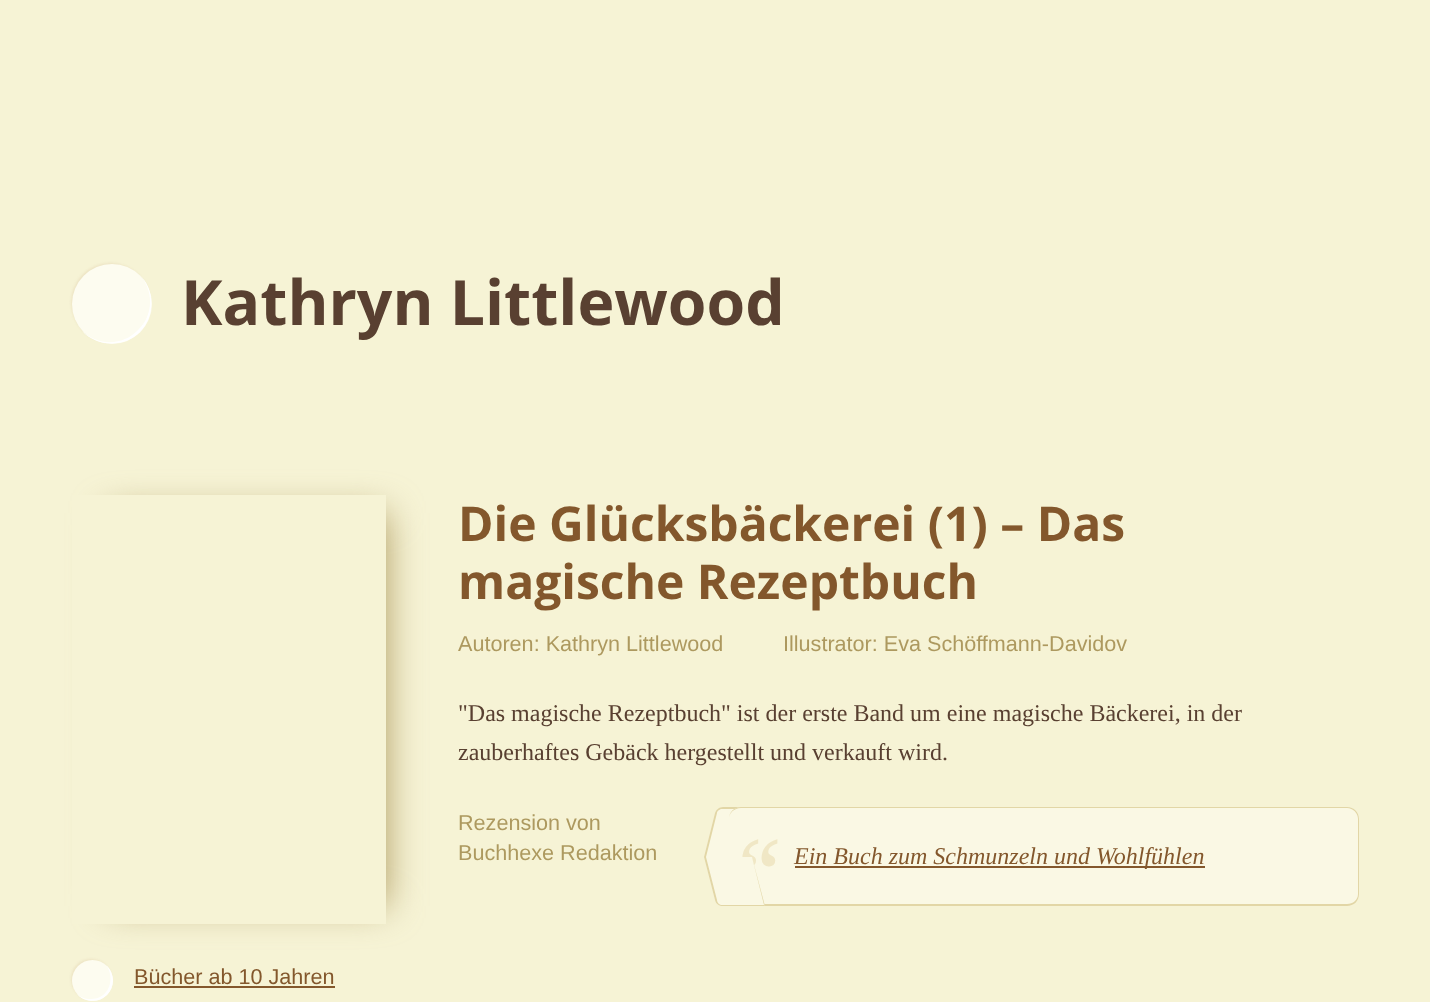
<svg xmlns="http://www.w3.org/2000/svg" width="1430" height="1002">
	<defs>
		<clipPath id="clip1"><path d="M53 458H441V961H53ZM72 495H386V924H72Z" clip-rule="evenodd" /></clipPath>
	</defs>
	<rect width="100%" height="100%" fill="#F6F3D5" />
	<rect x="71" y="263" width="79" height="79" rx="39.5" fill="#EDE4C4" filter="blur(1px)" />
	<circle cx="112" cy="304" r="40" fill="#FDFCF0" />
	<path d="M82 331C97 347 124 348 140 332C156 316 155 289 139 274C154 290 154 315 138 330C123 346 98 346 82 331Z" fill="#FFFFFF" />
	<text x="181" y="325" font-family="Open Sans" font-size="62.5" font-weight="700" fill="#594031">Kathryn Littlewood</text>
	<g font-family="Open Sans" font-size="48" font-weight="700" fill="#83572C">
		<text x="458" y="541">Die Glücksbäckerei (1) – Das</text>
		<text x="458" y="599">magische Rezeptbuch</text>
	</g>
	<g font-family="Liberation Sans" font-size="21.6" fill="#AD995F">
		<text x="458" y="651">Autoren: Kathryn Littlewood</text>
		<text x="783" y="651">Illustrator: Eva Schöffmann-Davidov</text>
	</g>
	<g font-family="Liberation Serif" font-size="24" fill="#594031">
		<text x="458" y="721">"Das magische Rezeptbuch" ist der erste Band um eine magische Bäckerei, in der</text>
		<text x="458" y="760">zauberhaftes Gebäck hergestellt und verkauft wird.</text>
	</g>
	<g font-family="Liberation Sans" font-size="21.6" fill="#AD995F">
		<text x="458" y="830">Rezension von</text>
		<text x="458" y="860">Buchhexe Redaktion</text>
	</g>
	<path d="M723 807H765L752 857H704L715 813C716 810 719 807 723 807Z" fill="#FAF8E4" />
	<path d="M723 807H765L752 857H704L715 813C716 810 719 807 723 807ZM722 809H764L752 857H706L717 813C717 811 720 809 722 809Z" fill="#E2D6A6" fill-rule="evenodd" />
	<rect x="729" y="807" width="630" height="99" rx="12" fill="#FAF8E4" />
	<path d="M741 807H1347C1354 807 1359 812 1359 819V894C1359 901 1354 906 1347 906H741C734 906 729 901 729 894V819C729 812 734 807 741 807ZM741 808H1347C1353 808 1358 813 1358 819V894C1358 900 1353 904 1347 904H741C734 904 729 900 729 894V819C729 813 734 808 741 808Z" fill="#E2D6A6" fill-rule="evenodd" />
	<text x="737" y="908" font-family="Noto Serif" font-size="96" fill="#F0E7C5">“</text>
	<rect x="795" y="866" width="410" height="2" fill="#83572C" />
	<text x="794" y="864" font-family="Liberation Serif" font-size="24" font-style="italic" fill="#83572C">Ein Buch zum Schmunzeln und Wohlfühlen</text>
	<path d="M704 857H752L765 906H723C719 906 716 904 715 900Z" fill="#FAF8E4" />
	<path d="M704 857H752L765 906H723C719 906 716 904 715 900ZM706 857H752L764 905H722C720 905 717 903 717 900Z" fill="#E2D6A6" fill-rule="evenodd" />
	<g clip-path="url(#clip1)">
		<rect x="108" y="513" width="278" height="393" fill="#AE9A5F" filter="blur(18px)" />
	</g>
	<rect x="71" y="959" width="40" height="40" rx="20" fill="#EDE4C4" filter="blur(1px)" />
	<circle cx="92.5" cy="980.5" r="20.5" fill="#FDFCF0" />
	<path d="M76.5 993.5C84 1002.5 98.5 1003.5 107 995C115 987 115 973.5 106.5 965.5C115 977.5 110 999 91 999C84.5 999 80 997 76.5 993.5Z" fill="#FFFFFF" />
	<text x="134" y="984" font-family="Liberation Sans" font-size="21.6" fill="#83572C">Bücher ab 10 Jahren</text>
	<rect x="134" y="986" width="201" height="2" fill="#83572C" />
</svg>
